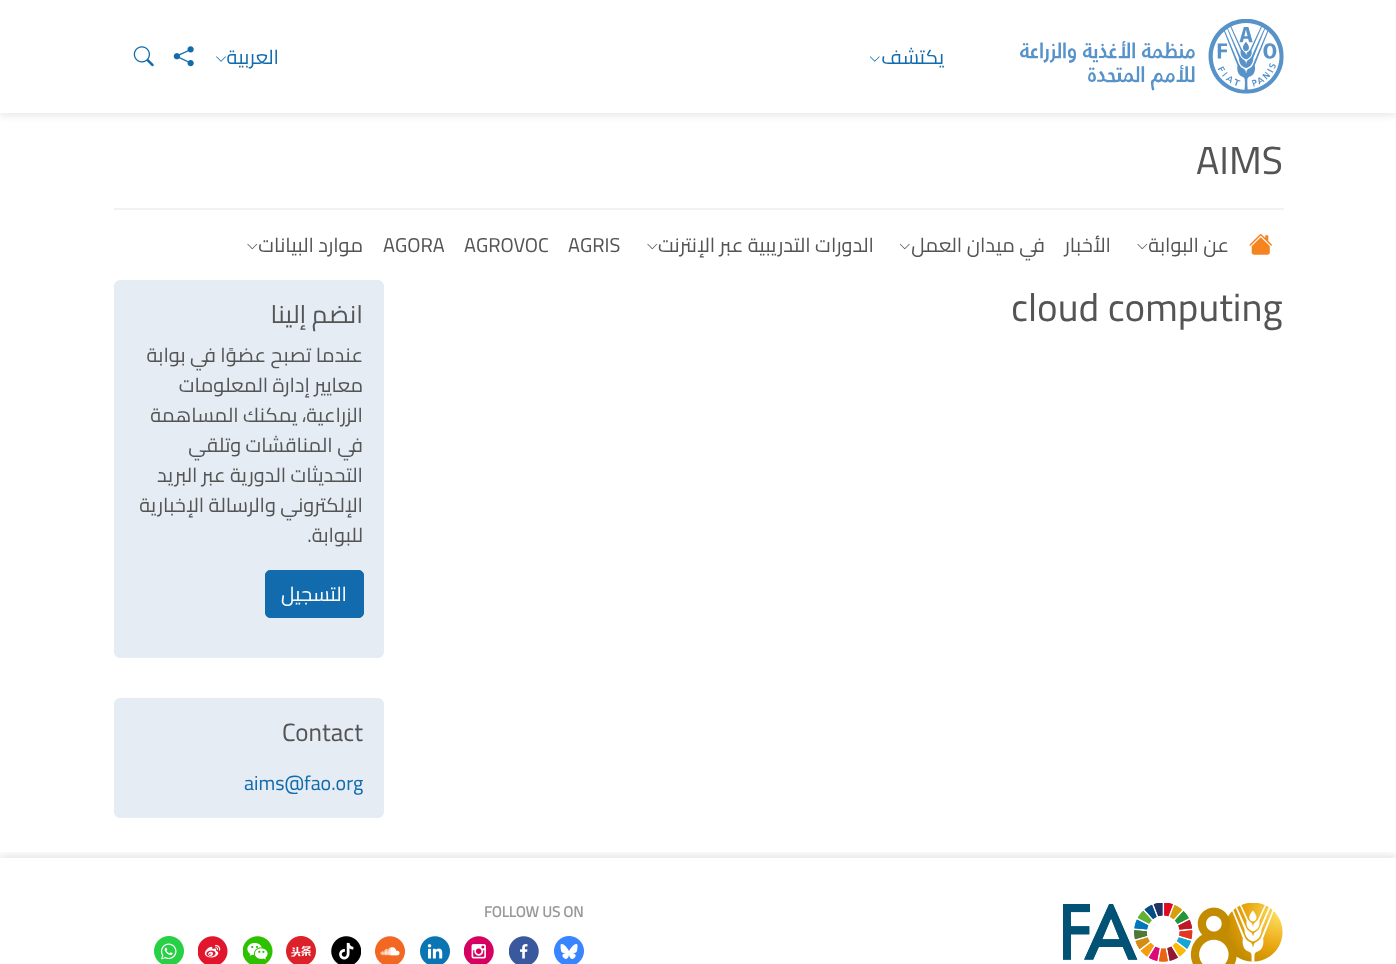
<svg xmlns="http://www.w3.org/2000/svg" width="1396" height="964">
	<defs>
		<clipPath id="clip1"><rect x="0" y="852" width="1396" height="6" /></clipPath>
	</defs>
	<rect width="100%" height="100%" fill="#FFFFFF" />
	<rect x="0" y="3" width="1396" height="112" fill="#000000" fill-opacity="0.1" filter="blur(4px)" />
	<rect x="0" y="0" width="1396" height="113" fill="#FFFFFF" />
	<image x="1020" y="19" width="264" height="75" href="assets/img1.png" />
	<text x="944" y="64" font-family="Cairo" font-size="20" direction="rtl" fill="#116BAC">يكتشف</text>
	<image x="869" y="56" width="11" height="6" href="assets/img2.png" />
	<text x="279" y="64" font-family="Cairo" font-size="20" direction="rtl" fill="#116BAC">العربية</text>
	<image x="216" y="56" width="10" height="6" href="assets/img3.png" />
	<image x="173" y="46" width="21" height="21" href="assets/img4.png" />
	<image x="133" y="46" width="21" height="21" href="assets/img5.png" />
	<rect x="114" y="208" width="1170" height="2" fill="#F2F2F2" />
	<text x="1196" y="174" font-family="Cairo" font-size="39" fill="#545454">AIMS</text>
	<image x="1249" y="234" width="23" height="21" href="assets/img6.png" />
	<text x="1229" y="252" font-family="Cairo" font-size="20" direction="rtl" fill="#545454">عن البوابة</text>
	<image x="1137" y="243" width="11" height="7" href="assets/img7.png" />
	<g font-family="Cairo" font-size="20" direction="rtl" fill="#545454">
		<text x="1111" y="252">الأخبار</text>
		<text x="1045" y="252">في ميدان العمل</text>
	</g>
	<image x="899" y="243" width="11" height="7" href="assets/img8.png" />
	<text x="874" y="252" font-family="Cairo" font-size="20" direction="rtl" fill="#545454">الدورات التدريبية عبر الإنترنت</text>
	<image x="647" y="243" width="11" height="7" href="assets/img7.png" />
	<g font-family="Cairo" font-size="20" fill="#545454">
		<text x="568" y="252">AGRIS</text>
		<text x="464" y="252">AGROVOC</text>
		<text x="383" y="252">AGORA</text>
	</g>
	<text x="363" y="252" font-family="Cairo" font-size="20" direction="rtl" fill="#545454">موارد البيانات</text>
	<image x="247" y="243" width="11" height="7" href="assets/img7.png" />
	<text x="1011" y="321" font-family="Cairo" font-size="39" fill="#545454">cloud computing</text>
	<rect x="114" y="280" width="270" height="378" rx="6" fill="#E5ECF4" />
	<text x="363" y="323" font-family="Cairo" font-size="25" direction="rtl" fill="#545454">انضم إلينا</text>
	<g font-family="Cairo" font-size="20" direction="rtl" fill="#545454">
		<text x="363" y="362">عندما تصبح عضوًا في بوابة</text>
		<text x="363" y="392">معايير إدارة المعلومات</text>
		<text x="363" y="422">الزراعية، يمكنك المساهمة</text>
		<text x="363" y="452">في المناقشات وتلقي</text>
		<text x="363" y="482">التحديثات الدورية عبر البريد</text>
		<text x="363" y="512">الإلكتروني والرسالة الإخبارية</text>
		<text x="363" y="542">للبوابة.</text>
	</g>
	<rect x="265.5" y="570.5" width="98" height="47" rx="4.5" fill="#116BAC" stroke="#116BAC" />
	<text x="347" y="601" font-family="Cairo" font-size="20" direction="rtl" fill="#FFFFFF">التسجيل</text>
	<rect x="114" y="698" width="270" height="120" rx="6" fill="#E5ECF4" />
	<text x="282" y="741" font-family="Cairo" font-size="25" fill="#545454">Contact</text>
	<text x="244" y="790" font-family="Cairo" font-size="20" fill="#116BAC">aims@fao.org</text>
	<g clip-path="url(#clip1)">
		<rect x="0" y="855" width="1396" height="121" fill="#000000" fill-opacity="0.1" filter="blur(4px)" />
	</g>
	<image x="1063" y="903" width="220" height="61" href="assets/img9.png" />
	<text x="484" y="917" font-family="Cairo" font-size="15" font-weight="700" fill="#999999">FOLLOW US ON</text>
	<image x="554" y="936" width="30" height="28" href="assets/img10.png" />
	<image x="509" y="936" width="30" height="28" href="assets/img11.png" />
	<image x="464" y="936" width="30" height="28" href="assets/img12.png" />
	<image x="420" y="936" width="30" height="28" href="assets/img13.png" />
	<image x="375" y="936" width="30" height="28" href="assets/img14.png" />
	<image x="331" y="936" width="30" height="28" href="assets/img15.png" />
	<image x="286" y="936" width="30" height="28" href="assets/img16.png" />
	<image x="243" y="936" width="30" height="28" href="assets/img17.png" />
	<image x="198" y="936" width="30" height="28" href="assets/img18.png" />
	<image x="154" y="936" width="30" height="28" href="assets/img19.png" />
</svg>
